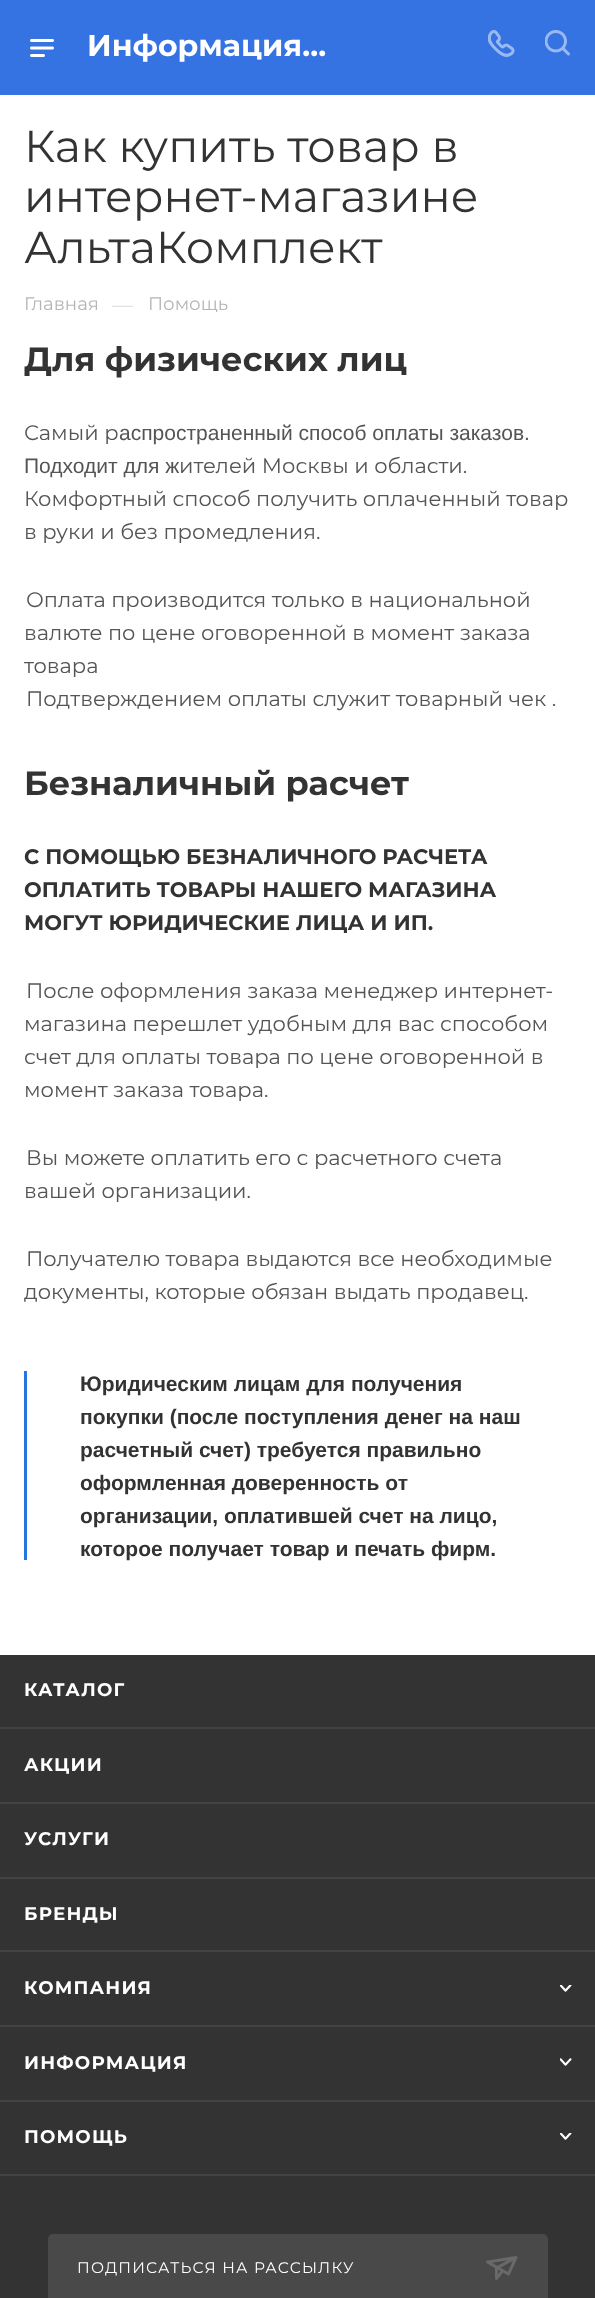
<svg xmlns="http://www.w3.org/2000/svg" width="595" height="2298">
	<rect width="100%" height="100%" fill="#FFFFFF" />
	<rect x="0" y="0" width="595" height="95" fill="#3573E3" />
	<image x="30" y="39" width="24" height="18" href="assets/img1.png" />
	<text x="87" y="56" font-family="Montserrat" font-size="30" font-weight="700" fill="#FFFFFF">Информация…</text>
	<image x="488" y="30" width="27" height="27" href="assets/img2.png" />
	<image x="545" y="30" width="25" height="26" href="assets/img3.png" />
	<g font-family="Montserrat" font-size="44.75" fill="#333333">
		<text x="24" y="162">Как купить товар в</text>
		<text x="24" y="212">интернет-магазине</text>
		<text x="24" y="263">АльтаКомплект</text>
	</g>
	<text x="24" y="310" font-family="Montserrat" font-size="18.25" fill="#B6B5B5">Главная</text>
	<text x="112" y="312" font-family="Montserrat" font-size="21" fill="#DDDDDD">—</text>
	<text x="148" y="310" font-family="Montserrat" font-size="18.25" fill="#B6B5B5">Помощь</text>
	<text x="24" y="371" font-family="Montserrat" font-size="33.6" font-weight="700" fill="#333333">Для физических лиц</text>
	<text x="24" y="440" font-family="Montserrat" font-size="21" fill="#555555">Самый р</text>
	<g font-family="Liberation Sans" font-size="21" fill="#555555">
		<text x="119" y="440">аспространенный способ оплаты заказов.</text>
		<text x="24" y="473">Подходит для ж</text>
	</g>
	<g font-family="Montserrat" font-size="21" fill="#555555">
		<text x="179" y="473">ителей Москвы и области.</text>
		<text x="24" y="506">Комфортный способ получить оплаченный товар</text>
		<text x="24" y="539">в руки и без промедления.</text>
		<text x="26" y="607">Оплата производится только в национальной</text>
		<text x="24" y="640">валюте по цене оговоренной в момент заказа</text>
		<text x="24" y="673">товара</text>
		<text x="26" y="706">Подтверждением оплаты служит товарный чек .</text>
	</g>
	<text x="24" y="795" font-family="Montserrat" font-size="33.6" font-weight="700" fill="#333333">Безналичный расчет</text>
	<g font-family="Montserrat" font-size="21" font-weight="700" fill="#333333">
		<text x="24" y="864">С ПОМОЩЬЮ БЕЗНАЛИЧНОГО РАСЧЕТА</text>
		<text x="24" y="897">ОПЛАТИТЬ ТОВАРЫ НАШЕГО МАГАЗИНА</text>
		<text x="24" y="930">МОГУТ ЮРИДИЧЕСКИЕ ЛИЦА И ИП.</text>
	</g>
	<g font-family="Montserrat" font-size="21" fill="#555555">
		<text x="26" y="998">После оформления заказа менеджер интернет-</text>
		<text x="24" y="1031">магазина перешлет удобным для вас способом</text>
		<text x="24" y="1064">счет для оплаты товара по цене оговоренной в</text>
		<text x="24" y="1097">момент заказа товара.</text>
		<text x="26" y="1165">Вы можете оплатить его с расчетного счета</text>
		<text x="24" y="1198">вашей организации.</text>
		<text x="26" y="1266">Получателю товара выдаются все необходимые</text>
		<text x="24" y="1299">документы, которые обязан выдать продавец.</text>
	</g>
	<rect x="24" y="1371" width="3" height="189" fill="#2676E2" />
	<g font-family="Liberation Sans" font-size="21" font-weight="700" fill="#333333">
		<text x="80" y="1391">Юридическим лицам для получения</text>
		<text x="80" y="1424">покупки (после поступления денег на наш</text>
		<text x="80" y="1457">расчетный счет) требуется правильно</text>
		<text x="80" y="1490">оформленная доверенность от</text>
		<text x="80" y="1523">организации, оплатившей счет на лицо,</text>
		<text x="80" y="1556">которое получает товар и печать фирм.</text>
	</g>
	<rect x="0" y="1655" width="595" height="643" fill="#333333" />
	<rect x="0" y="1727" width="595" height="2" fill="#434343" />
	<text x="24" y="1696" font-family="Montserrat" font-size="18.25" font-weight="700" letter-spacing="1.2" fill="#FFFFFF">КАТАЛОГ</text>
	<rect x="0" y="1802" width="595" height="2" fill="#434343" />
	<text x="24" y="1771" font-family="Montserrat" font-size="18.25" font-weight="700" letter-spacing="1.2" fill="#FFFFFF">АКЦИИ</text>
	<rect x="0" y="1877" width="595" height="2" fill="#434343" />
	<text x="24" y="1845" font-family="Montserrat" font-size="18.25" font-weight="700" letter-spacing="1.2" fill="#FFFFFF">УСЛУГИ</text>
	<rect x="0" y="1950" width="595" height="2" fill="#434343" />
	<text x="24" y="1920" font-family="Montserrat" font-size="18.25" font-weight="700" letter-spacing="1.2" fill="#FFFFFF">БРЕНДЫ</text>
	<rect x="0" y="2025" width="595" height="2" fill="#434343" />
	<text x="24" y="1994" font-family="Montserrat" font-size="18.25" font-weight="700" letter-spacing="1.2" fill="#FFFFFF">КОМПАНИЯ</text>
	<image x="560" y="1985" width="12" height="7" href="assets/img4.png" />
	<rect x="0" y="2100" width="595" height="2" fill="#434343" />
	<text x="24" y="2069" font-family="Montserrat" font-size="18.25" font-weight="700" letter-spacing="1.2" fill="#FFFFFF">ИНФОРМАЦИЯ</text>
	<image x="560" y="2058" width="12" height="8" href="assets/img5.png" />
	<rect x="0" y="2174" width="595" height="2" fill="#434343" />
	<text x="24" y="2143" font-family="Montserrat" font-size="18.25" font-weight="700" letter-spacing="1.2" fill="#FFFFFF">ПОМОЩЬ</text>
	<image x="560" y="2133" width="12" height="7" href="assets/img6.png" />
	<rect x="49" y="2235" width="498" height="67" rx="4" fill="#494949" stroke="#494949" stroke-width="2" />
	<text x="77" y="2273" font-family="Montserrat" font-size="15.4" letter-spacing="1.2" fill="#FFFFFF">ПОДПИСАТЬСЯ НА РАССЫЛКУ</text>
	<image x="486" y="2256" width="32" height="24" href="assets/img7.png" />
</svg>
